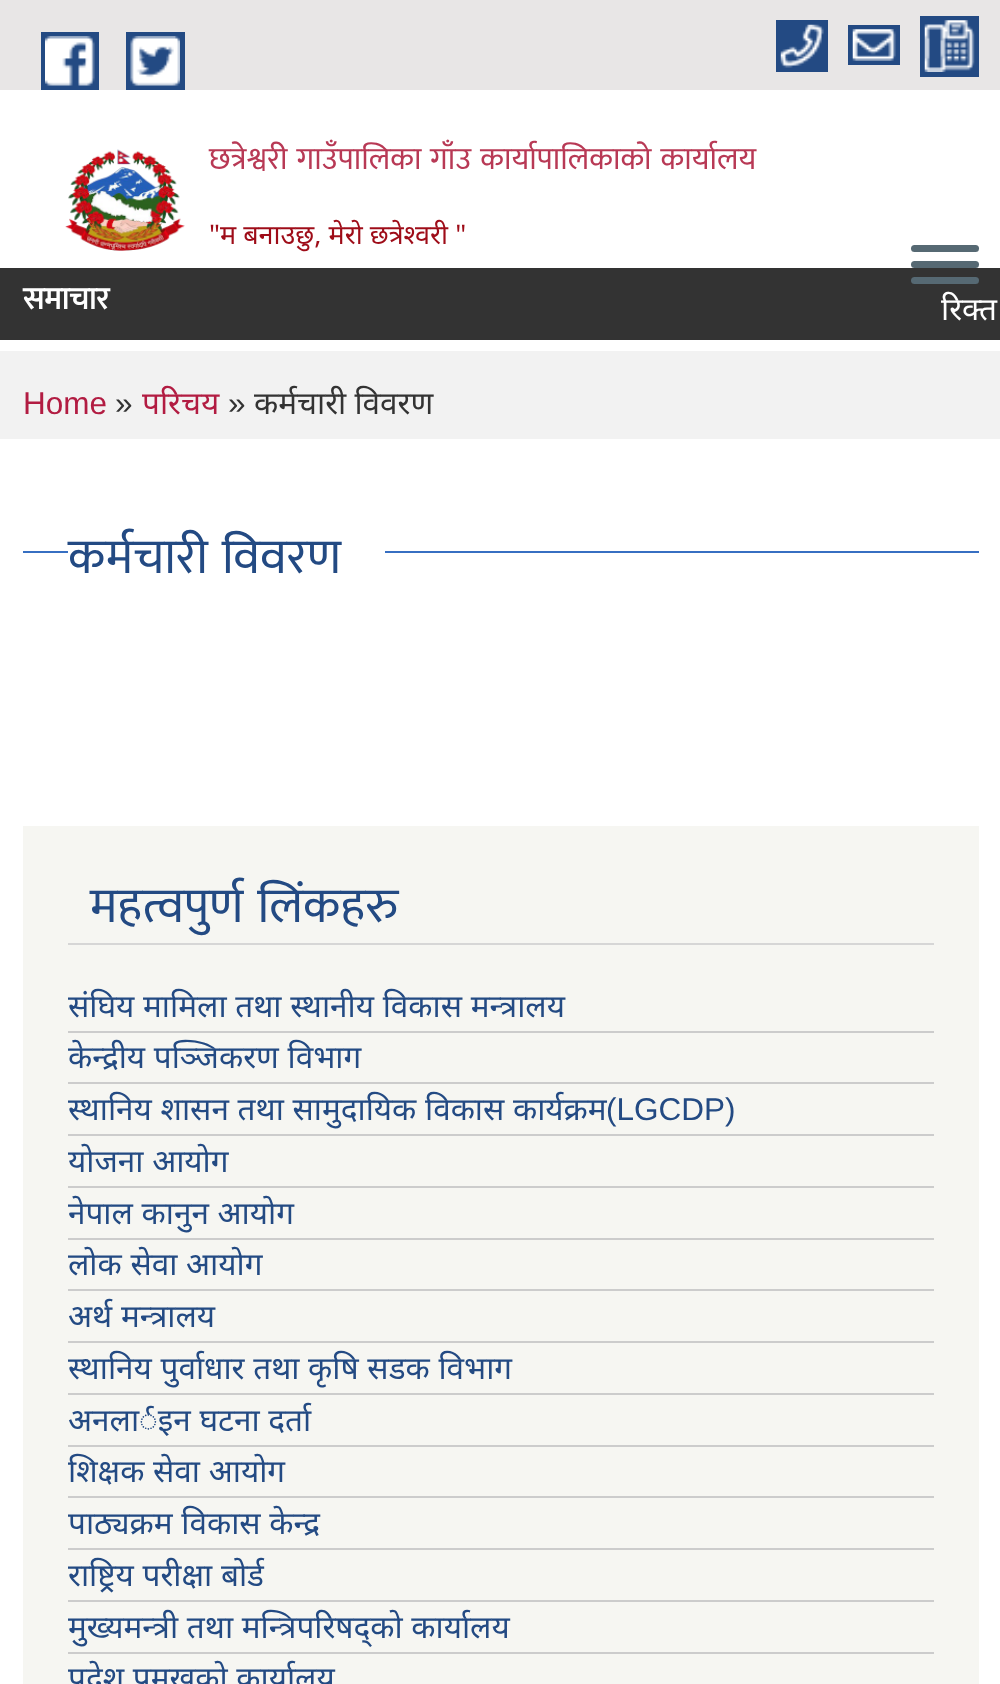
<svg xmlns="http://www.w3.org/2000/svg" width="1000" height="1684">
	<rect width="100%" height="100%" fill="#FFFFFF" />
	<rect x="0" y="0" width="1000" height="90" fill="#E8E6E6" />
	<rect x="41" y="32" width="58" height="58" fill="#234A83" />
	<rect x="126" y="32" width="59" height="58" fill="#234A83" />
	<image x="45" y="36" width="50" height="50" href="assets/img1.png" />
	<image x="130" y="36" width="50" height="50" href="assets/img2.png" />
	<rect x="776" y="20" width="52" height="52" fill="#234A83" />
	<rect x="920" y="16" width="59" height="61" fill="#234A83" />
	<image x="780" y="24" width="44" height="44" href="assets/img3.png" />
	<rect x="848" y="25" width="52" height="40" fill="#234A83" />
	<image x="924" y="20" width="51" height="52" href="assets/img4.png" />
	<image x="852" y="29" width="44" height="32" href="assets/img5.png" />
	<image x="65" y="149" width="120" height="102" href="assets/img6.png" />
	<g font-family="Mukta" font-size="31.5" fill="#B83955">
		<text x="209" y="169" word-spacing="2">छत्रेश्वरी गाउँपालिका</text>
		<text x="430" y="169" word-spacing="2">गाँउ कार्यापालिकाको कार्यालय</text>
	</g>
	<text x="209" y="244" font-family="Noto Sans" font-size="27" fill="#9E0C18">"म बनाउछु, मेरो छत्रेश्वरी "</text>
	<rect x="911" y="245" width="68" height="7" rx="3.5" fill="#566973" />
	<rect x="911" y="261" width="68" height="7" rx="3.5" fill="#566973" />
	<rect x="0" y="268" width="1000" height="72" fill="#333333" />
	<rect x="911" y="277" width="68" height="7" rx="3.5" fill="#566973" />
	<text x="23" y="309" font-family="Mukta" font-size="31.5" font-weight="700" fill="#FFFFFF">समाचार</text>
	<text x="941" y="320" word-spacing="0.5" font-family="Noto Sans" font-size="31.5" fill="#FFFFFF">रिक्त</text>
	<rect x="0" y="351" width="1000" height="88" fill="#F2F2F2" />
	<text x="23" y="414" font-family="Liberation Sans" font-size="31.5" fill="#B21C42">Home</text>
	<text x="115" y="414" font-family="Liberation Sans" font-size="31.5" fill="#333333">»</text>
	<text x="142" y="414" font-family="Noto Sans" font-size="31.5" fill="#B21C42">परिचय</text>
	<text x="228" y="414" font-family="Liberation Sans" font-size="31.5" fill="#333333">»</text>
	<text x="254" y="414" font-family="Noto Sans" font-size="31.5" fill="#333333">कर्मचारी विवरण</text>
	<rect x="23" y="551" width="956" height="2" fill="#376FC2" />
	<rect x="68" y="551" width="317" height="2" fill="#FFFFFF" />
	<text x="68" y="573" word-spacing="3" font-family="Mukta" font-size="49.5" fill="#234A83">कर्मचारी विवरण</text>
	<rect x="23" y="826" width="956" height="858" fill="#F6F6F2" />
	<rect x="68" y="943" width="866" height="2" fill="#D6D6D6" />
	<text x="90" y="922" word-spacing="3" font-family="Mukta" font-size="49.5" fill="#234A83">महत्वपुर्ण लिंकहरु</text>
	<rect x="68" y="1031" width="866" height="2" fill="#CCCCCC" />
	<text x="68" y="1017" word-spacing="0.5" font-family="Noto Sans" font-size="31.5" fill="#234A83">संघिय मामिला तथा स्थानीय विकास मन्त्रालय</text>
	<rect x="68" y="1082" width="866" height="2" fill="#CCCCCC" />
	<text x="68" y="1068" word-spacing="0.5" font-family="Noto Sans" font-size="31.5" fill="#234A83">केन्द्रीय पञ्जिकरण विभाग</text>
	<rect x="68" y="1134" width="866" height="2" fill="#CCCCCC" />
	<text x="68" y="1120" word-spacing="0.5" font-family="Noto Sans" font-size="31.5" fill="#234A83">स्थानिय शासन तथा सामुदायिक विकास कार्यक्रम</text>
	<text x="606" y="1120" font-family="Liberation Sans" font-size="31.5" fill="#234A83">(LGCDP)</text>
	<rect x="68" y="1186" width="866" height="2" fill="#CCCCCC" />
	<text x="68" y="1172" word-spacing="0.5" font-family="Noto Sans" font-size="31.5" fill="#234A83">योजना आयोग</text>
	<rect x="68" y="1238" width="866" height="2" fill="#CCCCCC" />
	<text x="68" y="1224" word-spacing="0.5" font-family="Noto Sans" font-size="31.5" fill="#234A83">नेपाल कानुन आयोग</text>
	<rect x="68" y="1289" width="866" height="2" fill="#CCCCCC" />
	<text x="68" y="1275" word-spacing="0.5" font-family="Noto Sans" font-size="31.5" fill="#234A83">लोक सेवा आयोग</text>
	<rect x="68" y="1341" width="866" height="2" fill="#CCCCCC" />
	<text x="68" y="1327" word-spacing="0.5" font-family="Noto Sans" font-size="31.5" fill="#234A83">अर्थ मन्त्रालय</text>
	<rect x="68" y="1393" width="866" height="2" fill="#CCCCCC" />
	<text x="68" y="1379" word-spacing="0.5" font-family="Noto Sans" font-size="31.5" fill="#234A83">स्थानिय पुर्वाधार तथा कृषि सडक विभाग</text>
	<rect x="68" y="1445" width="866" height="2" fill="#CCCCCC" />
	<text x="68" y="1431" word-spacing="0.5" font-family="Noto Sans" font-size="31.5" fill="#234A83">अनलार्इन घटना दर्ता</text>
	<rect x="68" y="1496" width="866" height="2" fill="#CCCCCC" />
	<text x="68" y="1482" word-spacing="0.5" font-family="Noto Sans" font-size="31.5" fill="#234A83">शिक्षक सेवा आयोग</text>
	<rect x="68" y="1548" width="866" height="2" fill="#CCCCCC" />
	<text x="68" y="1534" word-spacing="0.5" font-family="Noto Sans" font-size="31.5" fill="#234A83">पाठ्यक्रम विकास केन्द्र</text>
	<rect x="68" y="1600" width="866" height="2" fill="#CCCCCC" />
	<text x="68" y="1586" word-spacing="0.5" font-family="Noto Sans" font-size="31.5" fill="#234A83">राष्ट्रिय परीक्षा बोर्ड</text>
	<rect x="68" y="1652" width="866" height="2" fill="#CCCCCC" />
	<g font-family="Noto Sans" font-size="31.5" fill="#234A83">
		<text x="68" y="1638" word-spacing="0.5">मुख्यमन्त्री तथा मन्त्रिपरिषद्को कार्यालय</text>
		<text x="68" y="1689" word-spacing="0.5">प्रदेश प्रमुखको कार्यालय</text>
	</g>
</svg>
